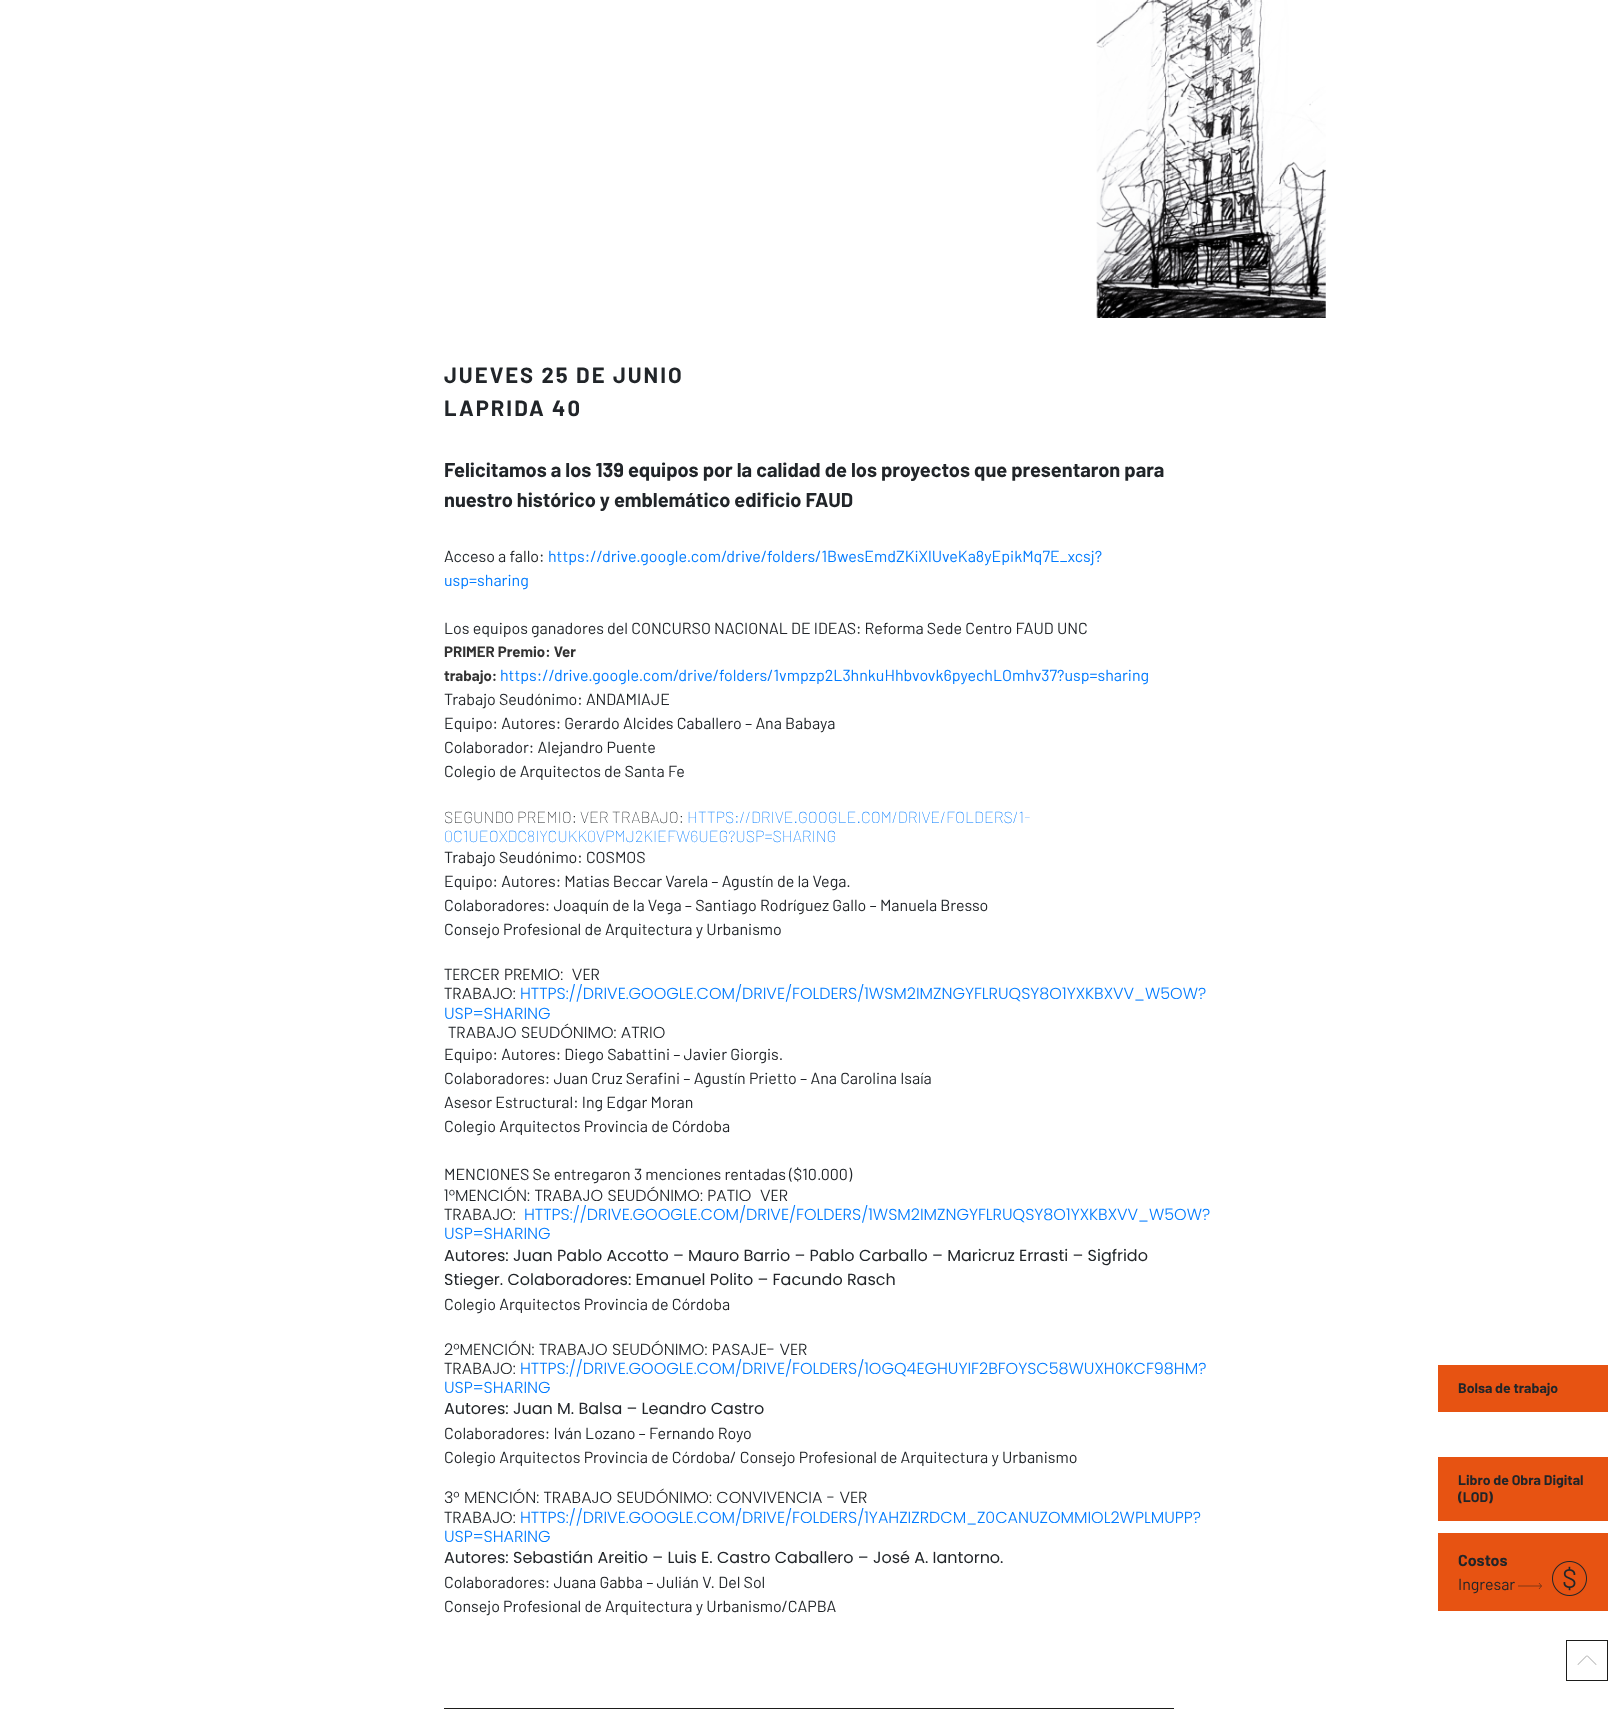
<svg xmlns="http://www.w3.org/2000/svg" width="1618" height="1731">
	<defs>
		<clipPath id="clip1"><path d="M1596.5 1655.5V1665.5H1577.5V1655.5Z" /></clipPath>
	</defs>
	<rect width="100%" height="100%" fill="#FFFFFF" />
	<image x="1096" y="0" width="230" height="318" href="assets/img1.png" />
	<g font-family="Barlow" font-size="22" font-weight="700" letter-spacing="2" fill="#212529">
		<text x="444" y="383">JUEVES 25 DE JUNIO</text>
		<text x="444" y="416">LAPRIDA 40</text>
	</g>
	<g font-family="Barlow" font-size="20" font-weight="700" fill="#212529">
		<text x="444" y="477">Felicitamos a los 139 equipos por la calidad de los proyectos que presentaron para</text>
		<text x="444" y="507">nuestro histórico y emblemático edificio FAUD</text>
	</g>
	<text x="444" y="562" font-family="Barlow" font-size="16" fill="#212529">Acceso a fallo:</text>
	<g font-family="Barlow" font-size="16" fill="#007BFF">
		<text x="548" y="562">https://drive.google.com/drive/folders/1BwesEmdZKiXlUveKa8yEpikMq7E_xcsj?</text>
		<text x="444" y="586">usp=sharing</text>
	</g>
	<text x="444" y="634" font-family="Barlow" font-size="16" fill="#212529">Los equipos ganadores del CONCURSO NACIONAL DE IDEAS: Reforma Sede Centro FAUD UNC</text>
	<g font-family="Barlow" font-size="15" font-weight="700" fill="#333333">
		<text x="444" y="657">PRIMER Premio: Ver</text>
		<text x="444" y="681">trabajo:</text>
	</g>
	<text x="500" y="681" font-family="Barlow" font-size="16" fill="#007BFF">https://drive.google.com/drive/folders/1vmpzp2L3hnkuHhbvovk6pyechLOmhv37?usp=sharing</text>
	<g font-family="Barlow" font-size="16" fill="#212529">
		<text x="444" y="705">Trabajo Seudónimo: ANDAMIAJE</text>
		<text x="444" y="729">Equipo: Autores: Gerardo Alcides Caballero – Ana Babaya</text>
		<text x="444" y="753">Colaborador: Alejandro Puente</text>
		<text x="444" y="777">Colegio de Arquitectos de Santa Fe</text>
	</g>
	<text x="444" y="823" font-family="Barlow" font-size="16" font-weight="100" fill="#212529">SEGUNDO PREMIO: VER TRABAJO:</text>
	<g font-family="Barlow" font-size="16" font-weight="100" fill="#007BFF">
		<text x="687" y="823">HTTPS://DRIVE.GOOGLE.COM/DRIVE/FOLDERS/1-</text>
		<text x="444" y="842">0C1UEOXDC8IYCUKK0VPMJ2KIEFW6UEG?USP=SHARING</text>
	</g>
	<g font-family="Barlow" font-size="16" fill="#212529">
		<text x="444" y="863">Trabajo Seudónimo: COSMOS</text>
		<text x="444" y="887">Equipo: Autores: Matias Beccar Varela – Agustín de la Vega.</text>
		<text x="444" y="911">Colaboradores: Joaquín de la Vega – Santiago Rodríguez Gallo – Manuela Bresso</text>
		<text x="444" y="935">Consejo Profesional de Arquitectura y Urbanismo</text>
	</g>
	<g font-family="Poppins" font-size="16" font-weight="300" fill="#212529">
		<text x="444" y="980" xml:space="preserve">TERCER PREMIO:  VER</text>
		<text x="444" y="999">TRABAJO:</text>
	</g>
	<g font-family="Poppins" font-size="16" font-weight="300" fill="#007BFF">
		<text x="520" y="999">HTTPS://DRIVE.GOOGLE.COM/DRIVE/FOLDERS/1WSM2IMZNGYFLRUQSY8O1YXKBXVV_W5OW?</text>
		<text x="444" y="1019">USP=SHARING</text>
	</g>
	<text x="448" y="1038" font-family="Poppins" font-size="16" font-weight="300" fill="#212529">TRABAJO SEUDÓNIMO: ATRIO</text>
	<g font-family="Barlow" font-size="16" fill="#212529">
		<text x="444" y="1060">Equipo: Autores: Diego Sabattini – Javier Giorgis.</text>
		<text x="444" y="1084">Colaboradores: Juan Cruz Serafini – Agustín Prietto – Ana Carolina Isaía</text>
		<text x="444" y="1108">Asesor Estructural: Ing Edgar Moran</text>
		<text x="444" y="1132">Colegio Arquitectos Provincia de Córdoba</text>
		<text x="444" y="1180">MENCIONES Se entregaron 3 menciones rentadas ($10.000)</text>
	</g>
	<g font-family="Poppins" font-size="16" font-weight="300" fill="#212529">
		<text x="444" y="1201" xml:space="preserve">1°MENCIÓN: TRABAJO SEUDÓNIMO: PATIO  VER</text>
		<text x="444" y="1220">TRABAJO:</text>
	</g>
	<g font-family="Poppins" font-size="16" font-weight="300" fill="#007BFF">
		<text x="524" y="1220">HTTPS://DRIVE.GOOGLE.COM/DRIVE/FOLDERS/1WSM2IMZNGYFLRUQSY8O1YXKBXVV_W5OW?</text>
		<text x="444" y="1239">USP=SHARING</text>
	</g>
	<g font-family="Poppins" font-size="16" fill="#212529">
		<text x="444" y="1261">Autores: Juan Pablo Accotto – Mauro Barrio – Pablo Carballo – Maricruz Errasti – Sigfrido</text>
		<text x="444" y="1285">Stieger. Colaboradores: Emanuel Polito – Facundo Rasch</text>
	</g>
	<text x="444" y="1310" font-family="Barlow" font-size="16" fill="#212529">Colegio Arquitectos Provincia de Córdoba</text>
	<g font-family="Poppins" font-size="16" font-weight="300" fill="#212529">
		<text x="444" y="1355">2°MENCIÓN: TRABAJO SEUDÓNIMO: PASAJE- VER</text>
		<text x="444" y="1374">TRABAJO:</text>
	</g>
	<g font-family="Poppins" font-size="16" font-weight="300" fill="#007BFF">
		<text x="520" y="1374">HTTPS://DRIVE.GOOGLE.COM/DRIVE/FOLDERS/1OGQ4EGHUYIF2BFOYSC58WUXH0KCF98HM?</text>
		<text x="444" y="1393">USP=SHARING</text>
	</g>
	<text x="444" y="1414" font-family="Poppins" font-size="16" fill="#212529">Autores: Juan M. Balsa – Leandro Castro</text>
	<g font-family="Barlow" font-size="16" fill="#212529">
		<text x="444" y="1439">Colaboradores: Iván Lozano – Fernando Royo</text>
		<text x="444" y="1463">Colegio Arquitectos Provincia de Córdoba/ Consejo Profesional de Arquitectura y Urbanismo</text>
	</g>
	<g font-family="Poppins" font-size="16" font-weight="300" fill="#212529">
		<text x="444" y="1503">3° MENCIÓN: TRABAJO SEUDÓNIMO: CONVIVENCIA - VER</text>
		<text x="444" y="1523">TRABAJO:</text>
	</g>
	<g font-family="Poppins" font-size="16" font-weight="300" fill="#007BFF">
		<text x="520" y="1523">HTTPS://DRIVE.GOOGLE.COM/DRIVE/FOLDERS/1YAHZIZRDCM_Z0CANUZOMMIOL2WPLMUPP?</text>
		<text x="444" y="1542">USP=SHARING</text>
	</g>
	<text x="444" y="1563" font-family="Poppins" font-size="16" fill="#212529">Autores: Sebastián Areitio – Luis E. Castro Caballero – José A. Iantorno.</text>
	<g font-family="Barlow" font-size="16" fill="#212529">
		<text x="444" y="1588">Colaboradores: Juana Gabba – Julián V. Del Sol</text>
		<text x="444" y="1612">Consejo Profesional de Arquitectura y Urbanismo/CAPBA</text>
	</g>
	<rect x="444" y="1708" width="730" height="1" fill="#1D1D1B" />
	<rect x="1438" y="1365" width="170" height="47" fill="#E75312" />
	<text x="1458" y="1393" font-family="Barlow" font-size="14" font-weight="700" fill="#212529">Bolsa de trabajo</text>
	<rect x="1438" y="1457" width="170" height="64" fill="#E75312" />
	<g font-family="Barlow" font-size="14" font-weight="700" fill="#212529">
		<text x="1458" y="1485">Libro de Obra Digital</text>
		<text x="1458" y="1502">(LOD)</text>
	</g>
	<rect x="1438" y="1533" width="170" height="78" fill="#E75312" />
	<text x="1458" y="1566" font-family="Barlow" font-size="16" font-weight="700" fill="#212529">Costos</text>
	<text x="1458" y="1590" font-family="Barlow" font-size="16" fill="#212529">Ingresar</text>
	<path d="M1518 1586H1541.5M1539 1583L1541.5 1586L1539 1589" fill="none" stroke="#1D1D1B" stroke-width="0.5" />
	<image x="1552" y="1561" width="35" height="35" href="assets/img2.png" />
	<rect x="1566.5" y="1640.5" width="41" height="40" fill="none" stroke="#1D1D1B" />
	<g clip-path="url(#clip1)">
		<g clip-path="url(#clip1)">
			<path d="M1577.5 1665L1587 1655.5L1596.5 1665" fill="none" stroke="#1D1D1B" stroke-width="0.4" />
		</g>
	</g>
</svg>
